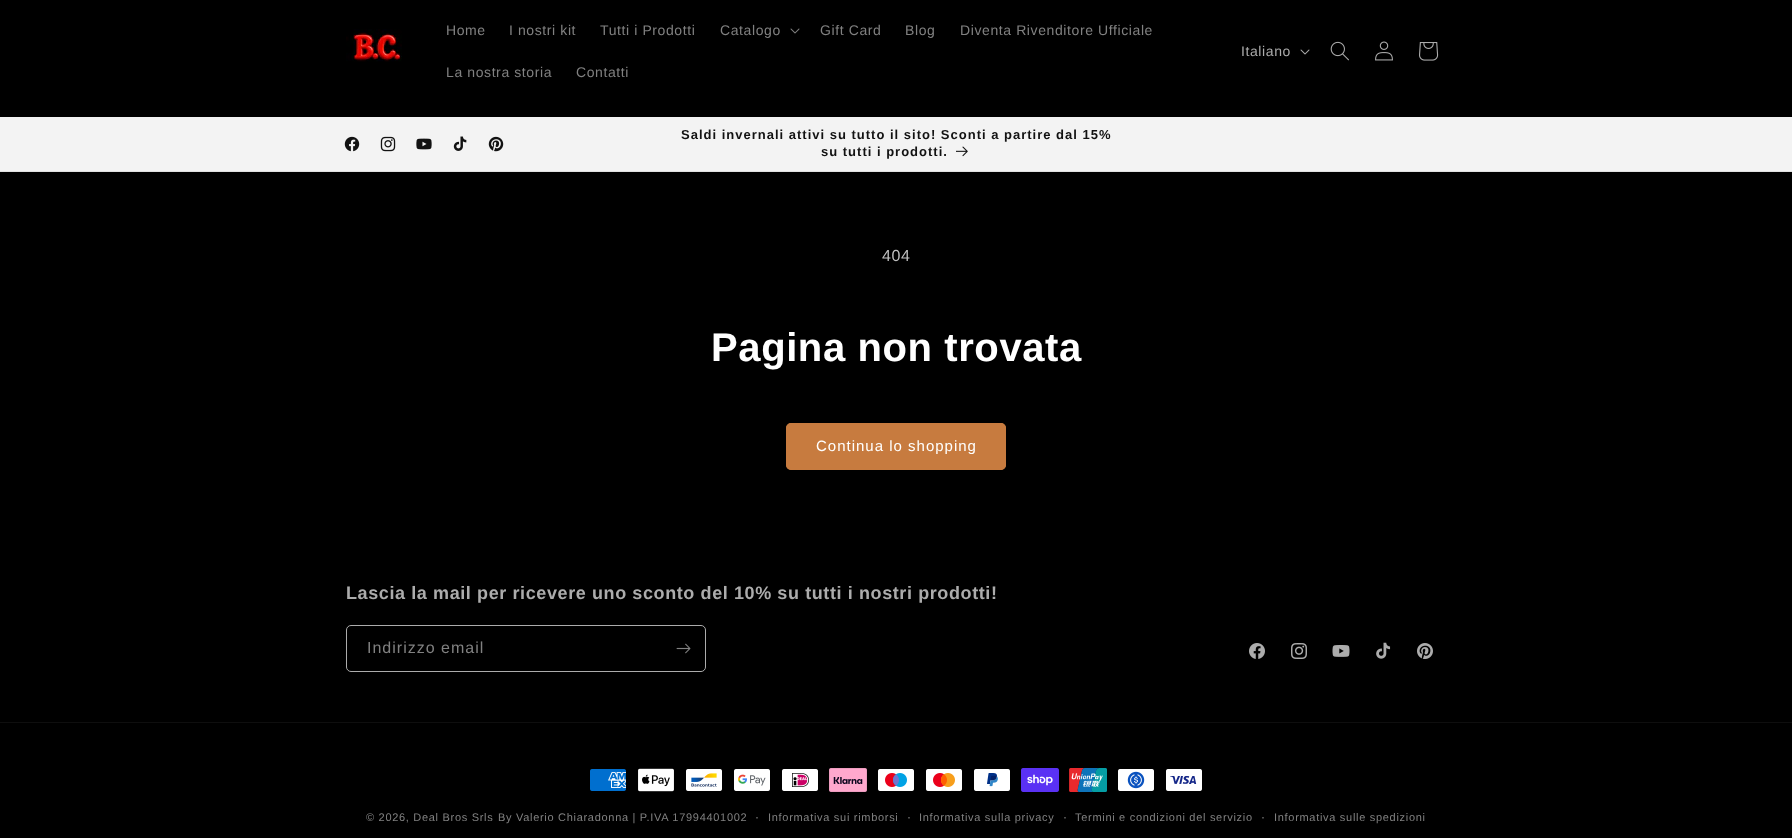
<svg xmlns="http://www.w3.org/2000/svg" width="1792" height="838">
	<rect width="100%" height="100%" fill="#000000" />
	<image x="346" y="29" width="56" height="33" href="assets/img1.png" />
	<g font-family="Liberation Sans" font-size="14" letter-spacing="0.6" fill="#818181">
		<text x="446" y="35">Home</text>
		<text x="509" y="35">I nostri kit</text>
		<text x="600" y="35">Tutti i Prodotti</text>
		<text x="720" y="35">Catalogo</text>
	</g>
	<image x="790" y="28" width="10" height="6" href="assets/img2.png" />
	<g font-family="Liberation Sans" font-size="14" letter-spacing="0.6" fill="#818181">
		<text x="820" y="35">Gift Card</text>
		<text x="905" y="35">Blog</text>
		<text x="960" y="35">Diventa Rivenditore Ufficiale</text>
		<text x="446" y="77">La nostra storia</text>
		<text x="576" y="77">Contatti</text>
	</g>
	<text x="1241" y="56" font-family="Liberation Sans" font-size="14" letter-spacing="0.6" fill="#ACACAC">Italiano</text>
	<image x="1300" y="49" width="10" height="6" href="assets/img3.png" />
	<image x="1330" y="41" width="19" height="20" href="assets/img4.png" />
	<image x="1375" y="41" width="18" height="20" href="assets/img5.png" />
	<image x="1419" y="42" width="20" height="19" href="assets/img6.png" />
	<rect x="0" y="117" width="1792" height="54" fill="#F3F3F3" />
	<rect x="0" y="171" width="1792" height="1" fill="#E1E1E1" />
	<image x="344" y="136" width="16" height="16" href="assets/img7.png" />
	<image x="380" y="136" width="16" height="16" href="assets/img8.png" />
	<image x="416" y="138" width="16" height="12" href="assets/img9.png" />
	<image x="453" y="136" width="14" height="15" href="assets/img10.png" />
	<image x="488" y="136" width="16" height="16" href="assets/img11.png" />
	<g font-family="Liberation Sans" font-size="13" font-weight="700" letter-spacing="1" fill="#121212">
		<text x="681" y="139">Saldi invernali attivi su tutto il sito! Sconti a partire dal 15%</text>
		<text x="821" y="156">su tutti i prodotti.</text>
	</g>
	<image x="956" y="146" width="12" height="11" href="assets/img12.png" />
	<text x="882" y="261" font-family="Liberation Sans" font-size="16" letter-spacing="0.6" fill="#BFBFBF">404</text>
	<text x="711" y="361" font-family="Liberation Sans" font-size="40" font-weight="700" letter-spacing="0.6" fill="#FFFFFF">Pagina non trovata</text>
	<rect x="786" y="423" width="220" height="47" rx="5" fill="#C77B3F" />
	<rect x="786.5" y="423.5" width="219" height="46" rx="4.5" fill="none" stroke="#C77B3F" />
	<text x="816" y="451" font-family="Liberation Sans" font-size="15" letter-spacing="1" fill="#FFFFFF">Continua lo shopping</text>
	<text x="346" y="599" font-family="Liberation Sans" font-size="18" font-weight="700" letter-spacing="0.6" fill="#ACACAC">Lascia la mail per ricevere uno sconto del 10% su tutti i nostri prodotti!</text>
	<rect x="346.5" y="625.5" width="359" height="46" rx="4.5" fill="none" stroke="#ACACAC" />
	<text x="367" y="653" font-family="Liberation Sans" font-size="16" letter-spacing="1" fill="#818181">Indirizzo email</text>
	<image x="676" y="643" width="15" height="11" href="assets/img13.png" />
	<image x="1249" y="643" width="16" height="16" href="assets/img14.png" />
	<image x="1291" y="643" width="16" height="16" href="assets/img15.png" />
	<image x="1332" y="645" width="18" height="12" href="assets/img16.png" />
	<image x="1376" y="642" width="15" height="17" href="assets/img17.png" />
	<image x="1417" y="643" width="16" height="16" href="assets/img18.png" />
	<rect x="0" y="722" width="1792" height="1" fill="#0E0E0E" />
	<image x="590" y="769" width="36" height="22" href="assets/img19.png" />
	<image x="638" y="768" width="36" height="24" href="assets/img20.png" />
	<image x="686" y="769" width="36" height="22" href="assets/img21.png" />
	<image x="734" y="769" width="36" height="22" href="assets/img22.png" />
	<image x="782" y="769" width="36" height="22" href="assets/img23.png" />
	<image x="829" y="768" width="38" height="24" href="assets/img24.png" />
	<image x="878" y="769" width="36" height="22" href="assets/img25.png" />
	<image x="926" y="769" width="36" height="22" href="assets/img26.png" />
	<image x="974" y="769" width="36" height="22" href="assets/img27.png" />
	<image x="1021" y="768" width="38" height="24" href="assets/img28.png" />
	<image x="1069" y="768" width="38" height="24" href="assets/img29.png" />
	<image x="1118" y="769" width="36" height="22" href="assets/img30.png" />
	<image x="1166" y="769" width="36" height="22" href="assets/img31.png" />
	<g font-family="Liberation Sans" font-size="11" letter-spacing="0.7" fill="#818181">
		<text x="366" y="821">© 2026, Deal Bros Srls</text>
		<text x="498" y="821">By Valerio Chiaradonna | P.IVA 17994401002</text>
	</g>
	<text x="755" y="821" font-family="Liberation Sans" font-size="12" letter-spacing="0.7" fill="#818181">·</text>
	<text x="768" y="821" font-family="Liberation Sans" font-size="11" letter-spacing="0.7" fill="#818181">Informativa sui rimborsi</text>
	<text x="907" y="821" font-family="Liberation Sans" font-size="12" letter-spacing="0.7" fill="#818181">·</text>
	<text x="919" y="821" font-family="Liberation Sans" font-size="11" letter-spacing="0.7" fill="#818181">Informativa sulla privacy</text>
	<text x="1063" y="821" font-family="Liberation Sans" font-size="12" letter-spacing="0.7" fill="#818181">·</text>
	<text x="1075" y="821" font-family="Liberation Sans" font-size="11" letter-spacing="0.7" fill="#818181">Termini e condizioni del servizio</text>
	<text x="1261" y="821" font-family="Liberation Sans" font-size="12" letter-spacing="0.7" fill="#818181">·</text>
	<text x="1274" y="821" font-family="Liberation Sans" font-size="11" letter-spacing="0.7" fill="#818181">Informativa sulle spedizioni</text>
</svg>
